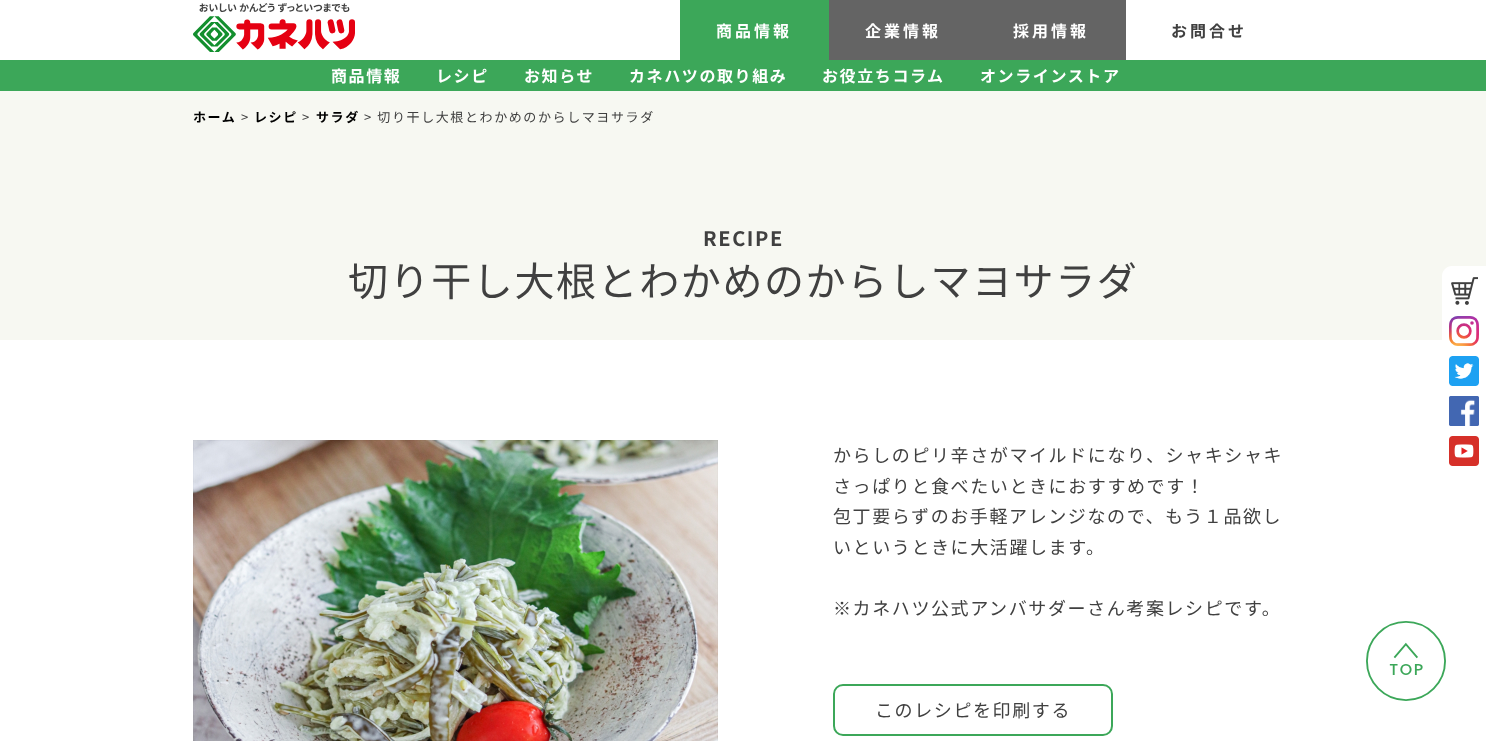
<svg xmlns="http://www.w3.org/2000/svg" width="1486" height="741">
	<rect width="100%" height="100%" fill="#FFFFFF" />
	<image x="193" y="3" width="162" height="49" href="assets/img1.png" />
	<rect x="680" y="0" width="149" height="60" fill="#3CA759" />
	<text x="716" y="37" font-family="Noto Sans JP" font-size="16" font-weight="700" letter-spacing="3" fill="#FFFFFF">商品情報</text>
	<rect x="829" y="0" width="297" height="60" fill="#646464" />
	<g font-family="Noto Sans JP" font-size="16" font-weight="700" letter-spacing="3" fill="#FFFFFF">
		<text x="865" y="37">企業情報</text>
		<text x="1013" y="37">採用情報</text>
	</g>
	<text x="1171" y="37" font-family="Noto Sans JP" font-size="16" font-weight="700" letter-spacing="3" fill="#404040">お問合せ</text>
	<rect x="0" y="60" width="1486" height="31" fill="#3CA759" />
	<g font-family="Noto Sans JP" font-size="16" font-weight="700" letter-spacing="1.6" fill="#FFFFFF">
		<text x="331" y="82">商品情報</text>
		<text x="436" y="82">レシピ</text>
		<text x="524" y="82">お知らせ</text>
		<text x="629" y="82">カネハツの取り組み</text>
		<text x="822" y="82">お役立ちコラム</text>
		<text x="980" y="82">オンラインストア</text>
	</g>
	<rect x="0" y="91" width="1486" height="249" fill="#F7F8F2" />
	<path d="M1452 266H1486V476H1452C1446.5 476 1442 471.5 1442 466V276C1442 270.5 1446.5 266 1452 266Z" fill="#FFFFFF" />
	<image x="1451" y="277" width="27" height="28" href="assets/img2.png" />
	<image x="1449" y="316" width="30" height="30" href="assets/img3.png" />
	<image x="1449" y="356" width="30" height="30" href="assets/img4.png" />
	<image x="1449" y="396" width="30" height="30" href="assets/img5.png" />
	<image x="1449" y="436" width="30" height="30" href="assets/img6.png" />
	<text x="193" y="122" font-family="Noto Sans JP" font-size="13" font-weight="700" letter-spacing="1.6" fill="#000000">ホーム</text>
	<text x="241" y="122" font-family="Noto Sans JP" font-size="13" letter-spacing="1.6" fill="#404040">&gt;</text>
	<text x="254" y="122" font-family="Noto Sans JP" font-size="13" font-weight="700" letter-spacing="1.6" fill="#000000">レシピ</text>
	<text x="302" y="122" font-family="Noto Sans JP" font-size="13" letter-spacing="1.6" fill="#404040">&gt;</text>
	<text x="316" y="122" font-family="Noto Sans JP" font-size="13" font-weight="700" letter-spacing="1.6" fill="#000000">サラダ</text>
	<text x="364" y="122" font-family="Noto Sans JP" font-size="13" letter-spacing="1.6" fill="#404040">&gt; 切り干し大根とわかめのからしマヨサラダ</text>
	<text x="703" y="246" font-family="Noto Sans JP" font-size="20" font-weight="700" letter-spacing="1.6" fill="#404040">RECIPE</text>
	<text x="348" y="296" font-family="Noto Sans JP" font-size="40" letter-spacing="1.6" fill="#404040">切り干し大根とわかめのからしマヨサラダ</text>
	<image x="193" y="440" width="525" height="301" href="assets/img7.png" />
	<g font-family="Noto Sans JP" font-size="18" letter-spacing="1.6" fill="#404040">
		<text x="833" y="462">からしのピリ辛さがマイルドになり、シャキシャキ</text>
		<text x="833" y="493">さっぱりと食べたいときにおすすめです！</text>
		<text x="833" y="523">包丁要らずのお手軽アレンジなので、もう１品欲し</text>
		<text x="833" y="554">いというときに大活躍します。</text>
		<text x="833" y="615">※カネハツ公式アンバサダーさん考案レシピです。</text>
	</g>
	<rect x="834" y="685" width="278" height="50" rx="9" fill="none" stroke="#3CA759" stroke-width="2" />
	<text x="875" y="717" font-family="Noto Sans JP" font-size="18" letter-spacing="1.6" fill="#404040">このレシピを印刷する</text>
	<image x="1366" y="621" width="80" height="80" href="assets/img8.png" />
</svg>
